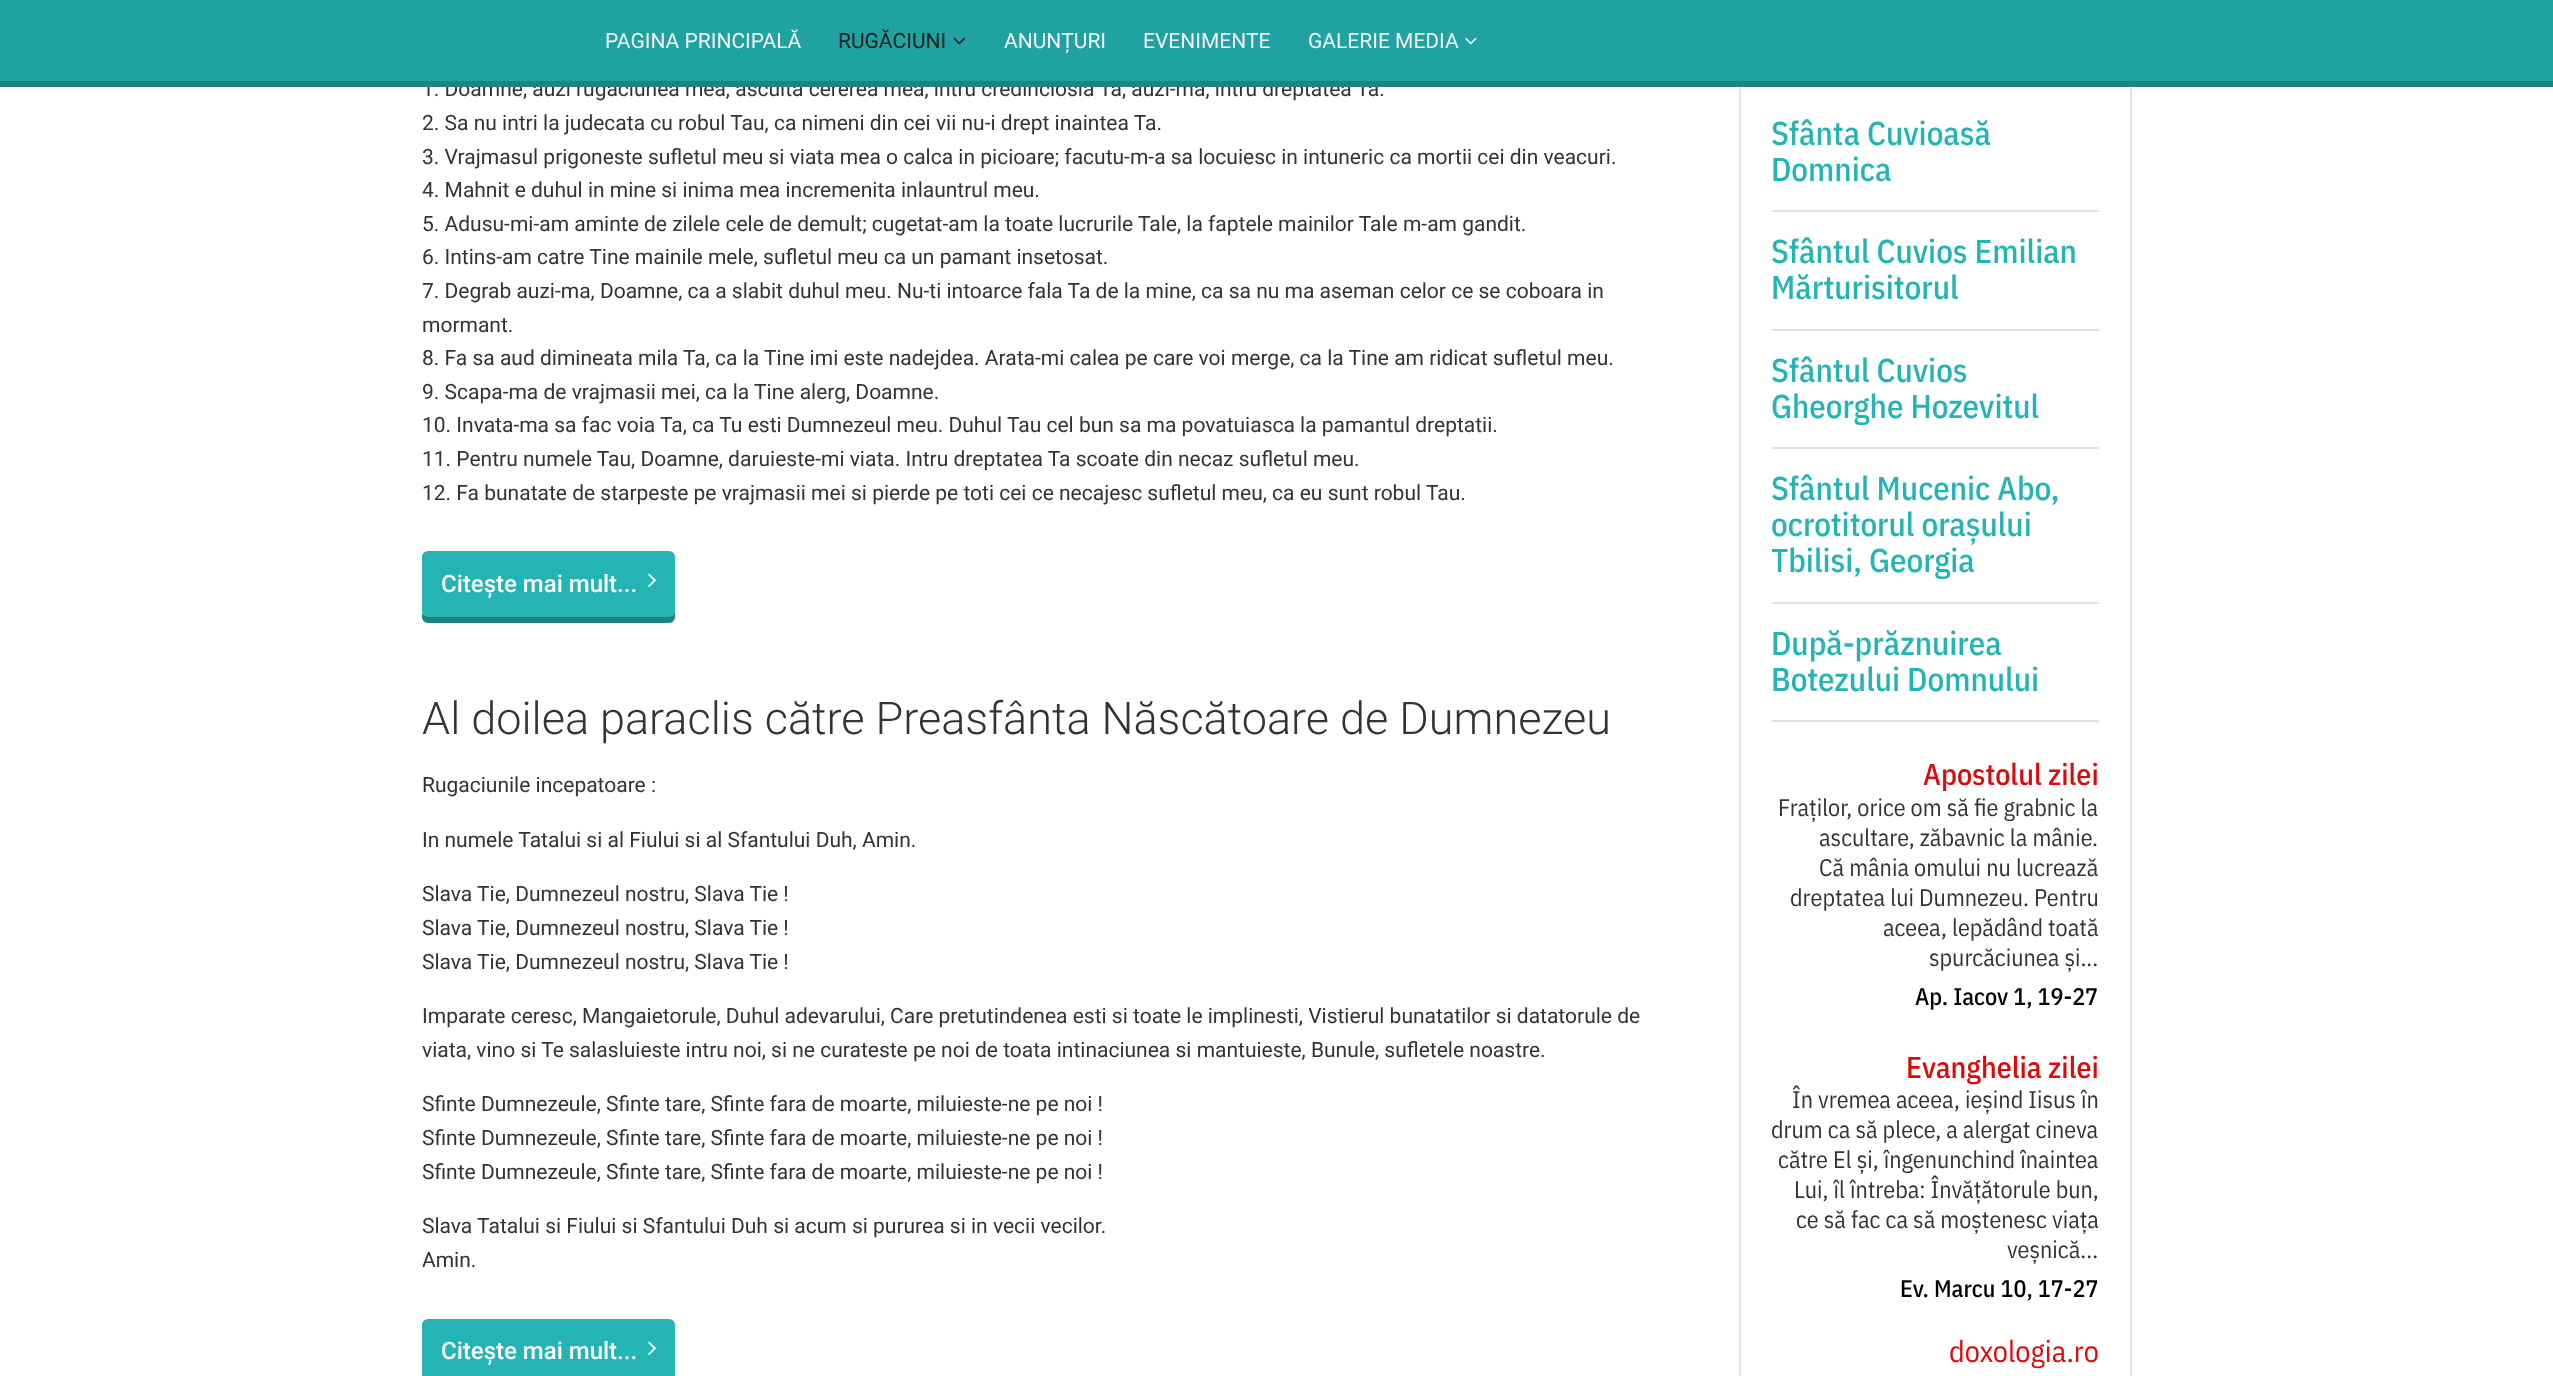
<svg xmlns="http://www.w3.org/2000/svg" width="2553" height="1376">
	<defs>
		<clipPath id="clip1"><rect x="1772" y="449" width="327" height="153" /></clipPath>
	</defs>
	<rect width="100%" height="100%" fill="#FFFFFF" />
	<text x="422" y="96" font-family="Roboto" font-size="21" fill="#333333">1. Doamne, auzi rugaciunea mea, asculta cererea mea, intru credinciosia Ta, auzi-ma, intru dreptatea Ta.</text>
	<rect x="1740" y="-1" width="391" height="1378" fill="none" stroke="#E7E7E7" stroke-width="2" />
	<rect x="0" y="81" width="2553" height="6" fill="#1E8383" />
	<rect x="0" y="0" width="2553" height="81" fill="#20A2A2" />
	<text x="605" y="48" font-family="Roboto" font-size="21" fill="#F2F2F2">PAGINA PRINCIPALĂ</text>
	<text x="838" y="48" font-family="Roboto" font-size="21" fill="#212121">RUGĂCIUNI</text>
	<image x="953" y="37" width="12" height="8" href="assets/img1.png" />
	<g font-family="Roboto" font-size="21" fill="#F2F2F2">
		<text x="1004" y="48">ANUNȚURI</text>
		<text x="1143" y="48">EVENIMENTE</text>
		<text x="1308" y="48">GALERIE MEDIA</text>
	</g>
	<image x="1464" y="37" width="13" height="8" href="assets/img2.png" />
	<g font-family="Roboto" font-size="21" fill="#333333">
		<text x="422" y="130">2. Sa nu intri la judecata cu robul Tau, ca nimeni din cei vii nu-i drept inaintea Ta.</text>
		<text x="422" y="164">3. Vrajmasul prigoneste sufletul meu si viata mea o calca in picioare; facutu-m-a sa locuiesc in intuneric ca mortii cei din veacuri.</text>
		<text x="422" y="197">4. Mahnit e duhul in mine si inima mea incremenita inlauntrul meu.</text>
		<text x="422" y="231">5. Adusu-mi-am aminte de zilele cele de demult; cugetat-am la toate lucrurile Tale, la faptele mainilor Tale m-am gandit.</text>
		<text x="422" y="264">6. Intins-am catre Tine mainile mele, sufletul meu ca un pamant insetosat.</text>
		<text x="422" y="298">7. Degrab auzi-ma, Doamne, ca a slabit duhul meu. Nu-ti intoarce fala Ta de la mine, ca sa nu ma aseman celor ce se coboara in</text>
		<text x="422" y="332">mormant.</text>
		<text x="422" y="365">8. Fa sa aud dimineata mila Ta, ca la Tine imi este nadejdea. Arata-mi calea pe care voi merge, ca la Tine am ridicat sufletul meu.</text>
		<text x="422" y="399">9. Scapa-ma de vrajmasii mei, ca la Tine alerg, Doamne.</text>
		<text x="422" y="432">10. Invata-ma sa fac voia Ta, ca Tu esti Dumnezeul meu. Duhul Tau cel bun sa ma povatuiasca la pamantul dreptatii.</text>
		<text x="422" y="466">11. Pentru numele Tau, Doamne, daruieste-mi viata. Intru dreptatea Ta scoate din necaz sufletul meu.</text>
		<text x="422" y="500">12. Fa bunatate de starpeste pe vrajmasii mei si pierde pe toti cei ce necajesc sufletul meu, ca eu sunt robul Tau.</text>
	</g>
	<path d="M422 613V617C422 620 425 623 428 623H669C672 623 675 620 675 617V610C675 614 672 616 669 616H428C425 616 423 615 422 613Z" fill="#24B4B4" />
	<path d="M422 613V617C422 620 425 623 428 623H669C672 623 675 620 675 617V610C675 614 672 616 669 616H428C425 616 423 615 422 613Z" fill="#111111" fill-opacity="0.3" />
	<rect x="422" y="551" width="253" height="66" rx="6" fill="#24B4B4" />
	<text x="441" y="592" font-family="Roboto" font-size="24" font-weight="500" fill="#FFFFFF">Citește mai mult...</text>
	<image x="648" y="573" width="8" height="14" href="assets/img3.png" />
	<text x="422" y="734" font-family="Roboto" font-size="45" font-weight="300" fill="#333333">Al doilea paraclis către Preasfânta Născătoare de Dumnezeu</text>
	<g font-family="Roboto" font-size="21" fill="#333333">
		<text x="422" y="792">Rugaciunile incepatoare :</text>
		<text x="422" y="847">In numele Tatalui si al Fiului si al Sfantului Duh, Amin.</text>
		<text x="422" y="901">Slava Tie, Dumnezeul nostru, Slava Tie !</text>
		<text x="422" y="935">Slava Tie, Dumnezeul nostru, Slava Tie !</text>
		<text x="422" y="969">Slava Tie, Dumnezeul nostru, Slava Tie !</text>
		<text x="422" y="1023">Imparate ceresc, Mangaietorule, Duhul adevarului, Care pretutindenea esti si toate le implinesti, Vistierul bunatatilor si datatorule de</text>
		<text x="422" y="1057">viata, vino si Te salasluieste intru noi, si ne curateste pe noi de toata intinaciunea si mantuieste, Bunule, sufletele noastre.</text>
		<text x="422" y="1111">Sfinte Dumnezeule, Sfinte tare, Sfinte fara de moarte, miluieste-ne pe noi !</text>
		<text x="422" y="1145">Sfinte Dumnezeule, Sfinte tare, Sfinte fara de moarte, miluieste-ne pe noi !</text>
		<text x="422" y="1179">Sfinte Dumnezeule, Sfinte tare, Sfinte fara de moarte, miluieste-ne pe noi !</text>
		<text x="422" y="1233">Slava Tatalui si Fiului si Sfantului Duh si acum si pururea si in vecii vecilor.</text>
		<text x="422" y="1267">Amin.</text>
	</g>
	<rect x="422" y="1319" width="253" height="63" rx="6" fill="#24B4B4" />
	<text x="441" y="1359" font-family="Roboto" font-size="24" font-weight="500" fill="#FFFFFF">Citește mai mult...</text>
	<image x="648" y="1341" width="8" height="14" href="assets/img3.png" />
	<rect x="1772" y="210" width="327" height="2" fill="#E6DFDF" />
	<g font-family="IBM Plex Sans Condensed" font-size="33" font-weight="500" fill="#24B4B4">
		<text x="1771" y="145">Sfânta Cuvioasă</text>
		<text x="1771" y="181">Domnica</text>
	</g>
	<rect x="1772" y="329" width="327" height="2" fill="#E6DFDF" />
	<g font-family="IBM Plex Sans Condensed" font-size="33" font-weight="500" fill="#24B4B4">
		<text x="1771" y="263">Sfântul Cuvios Emilian</text>
		<text x="1771" y="299">Mărturisitorul</text>
	</g>
	<rect x="1772" y="447" width="327" height="2" fill="#E6DFDF" />
	<g font-family="IBM Plex Sans Condensed" font-size="33" font-weight="500" fill="#24B4B4">
		<text x="1771" y="382">Sfântul Cuvios</text>
		<text x="1771" y="418">Gheorghe Hozevitul</text>
	</g>
	<rect x="1772" y="602" width="327" height="2" fill="#E6DFDF" />
	<g font-family="IBM Plex Sans Condensed" font-size="33" font-weight="500" fill="#24B4B4">
		<text x="1771" y="500">Sfântul Mucenic Abo,</text>
		<text x="1771" y="536">ocrotitorul orașului</text>
	</g>
	<g clip-path="url(#clip1)">
		<text x="1771" y="572" font-family="IBM Plex Sans Condensed" font-size="33" font-weight="500" fill="#24B4B4">Tbilisi, Georgia</text>
	</g>
	<rect x="1772" y="720" width="327" height="2" fill="#E6DFDF" />
	<g font-family="IBM Plex Sans Condensed" font-size="33" font-weight="500" fill="#24B4B4">
		<text x="1771" y="655">După-prăznuirea</text>
		<text x="1771" y="691">Botezului Domnului</text>
	</g>
	<text x="1923" y="785" font-family="IBM Plex Sans Condensed" font-size="30" font-weight="500" fill="#DC0A0A">Apostolul zilei</text>
	<g font-family="IBM Plex Sans Condensed" font-size="24" fill="#333333">
		<text x="1778" y="816">Fraților, orice om să fie grabnic la</text>
		<text x="1819" y="846">ascultare, zăbavnic la mânie.</text>
		<text x="1819" y="876">Că mânia omului nu lucrează</text>
		<text x="1790" y="906">dreptatea lui Dumnezeu. Pentru</text>
		<text x="1883" y="936">aceea, lepădând toată</text>
		<text x="1929" y="966">spurcăciunea și...</text>
	</g>
	<text x="1915" y="1005" font-family="IBM Plex Sans Condensed" font-size="24" font-weight="500" fill="#000000">Ap. Iacov 1, 19-27</text>
	<text x="1906" y="1078" font-family="IBM Plex Sans Condensed" font-size="30" font-weight="500" fill="#DC0A0A">Evanghelia zilei</text>
	<g font-family="IBM Plex Sans Condensed" font-size="24" fill="#333333">
		<text x="1792" y="1108">În vremea aceea, ieșind Iisus în</text>
		<text x="1771" y="1138">drum ca să plece, a alergat cineva</text>
		<text x="1778" y="1168">către El și, îngenunchind înaintea</text>
		<text x="1794" y="1198">Lui, îl întreba: Învățătorule bun,</text>
		<text x="1796" y="1228">ce să fac ca să moștenesc viața</text>
		<text x="2007" y="1258">veșnică...</text>
	</g>
	<text x="1900" y="1297" font-family="IBM Plex Sans Condensed" font-size="24" font-weight="500" fill="#000000">Ev. Marcu 10, 17-27</text>
	<text x="1949" y="1362" font-family="IBM Plex Sans Condensed" font-size="30" fill="#DC0A0A">doxologia.ro</text>
</svg>
